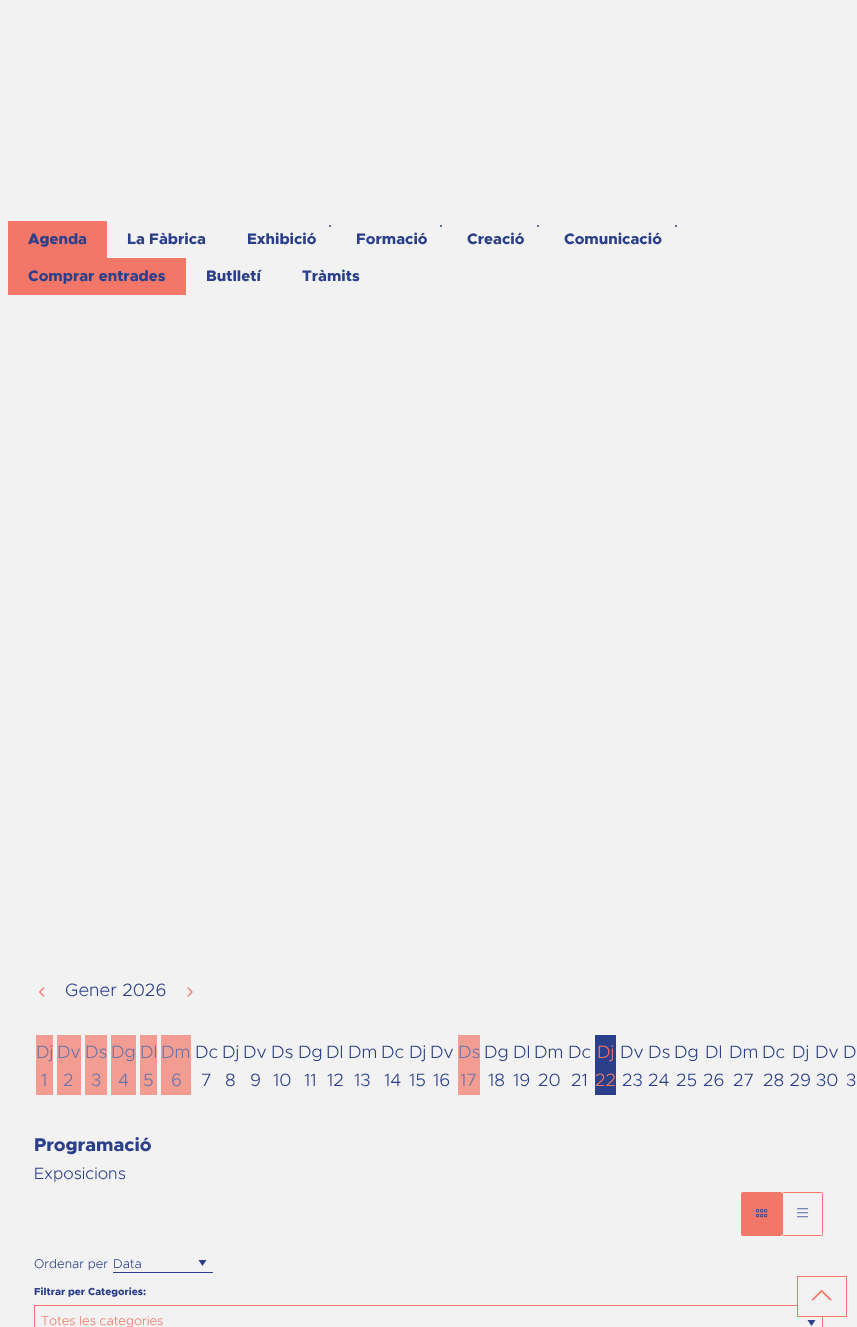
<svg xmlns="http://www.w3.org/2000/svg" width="857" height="1327">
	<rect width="100%" height="100%" fill="#F2F2F2" />
	<rect x="8" y="221" width="99" height="37" fill="#F37769" />
	<g font-family="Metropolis" font-size="15.25" font-weight="800" fill="#2B3F8A">
		<text x="28" y="244">Agenda</text>
		<text x="127" y="244">La Fàbrica</text>
	</g>
	<circle cx="330" cy="226" r="1" fill="#2B3F8A" />
	<text x="247" y="244" font-family="Metropolis" font-size="15.25" font-weight="800" fill="#2B3F8A">Exhibició</text>
	<circle cx="441" cy="226" r="1" fill="#2B3F8A" />
	<text x="356" y="244" font-family="Metropolis" font-size="15.25" font-weight="800" fill="#2B3F8A">Formació</text>
	<circle cx="538" cy="226" r="1" fill="#2B3F8A" />
	<text x="467" y="244" font-family="Metropolis" font-size="15.25" font-weight="800" fill="#2B3F8A">Creació</text>
	<circle cx="676" cy="226" r="1" fill="#2B3F8A" />
	<text x="564" y="244" font-family="Metropolis" font-size="15.25" font-weight="800" fill="#2B3F8A">Comunicació</text>
	<rect x="8" y="258" width="178" height="37" fill="#F37769" />
	<g font-family="Metropolis" font-size="15.25" font-weight="800" fill="#2B3F8A">
		<text x="28" y="281">Comprar entrades</text>
		<text x="206" y="281">Butlletí</text>
		<text x="302" y="281">Tràmits</text>
	</g>
	<image x="39" y="987" width="6" height="10" href="assets/img1.png" />
	<text x="65" y="996" font-family="Metropolis" font-size="18" font-weight="300" fill="#2B3F8A">Gener 2026</text>
	<image x="187" y="987" width="6" height="10" href="assets/img2.png" />
	<rect x="36" y="1035" width="17" height="60" fill="#F39C92" />
	<g font-family="Metropolis" font-size="18" font-weight="300" fill="#6775A9">
		<text x="36" y="1058">Dj</text>
		<text x="41" y="1086">1</text>
	</g>
	<rect x="57" y="1035" width="24" height="60" fill="#F39C92" />
	<g font-family="Metropolis" font-size="18" font-weight="300" fill="#6775A9">
		<text x="57" y="1058">Dv</text>
		<text x="63" y="1086">2</text>
	</g>
	<rect x="85" y="1035" width="22" height="60" fill="#F39C92" />
	<g font-family="Metropolis" font-size="18" font-weight="300" fill="#6775A9">
		<text x="85" y="1058">Ds</text>
		<text x="91" y="1086">3</text>
	</g>
	<rect x="111" y="1035" width="25" height="60" fill="#F39C92" />
	<g font-family="Metropolis" font-size="18" font-weight="300" fill="#6775A9">
		<text x="111" y="1058">Dg</text>
		<text x="118" y="1086">4</text>
	</g>
	<rect x="140" y="1035" width="17" height="60" fill="#F39C92" />
	<g font-family="Metropolis" font-size="18" font-weight="300" fill="#6775A9">
		<text x="140" y="1058">Dl</text>
		<text x="143" y="1086">5</text>
	</g>
	<rect x="161" y="1035" width="30" height="60" fill="#F39C92" />
	<g font-family="Metropolis" font-size="18" font-weight="300" fill="#6775A9">
		<text x="161" y="1058">Dm</text>
		<text x="171" y="1086">6</text>
	</g>
	<g font-family="Metropolis" font-size="18" font-weight="300" fill="#2B3F8A">
		<text x="195" y="1058">Dc</text>
		<text x="201" y="1086">7</text>
		<text x="222" y="1058">Dj</text>
		<text x="225" y="1086">8</text>
		<text x="243" y="1058">Dv</text>
		<text x="250" y="1086">9</text>
		<text x="271" y="1058">Ds</text>
		<text x="273" y="1086">10</text>
		<text x="298" y="1058">Dg</text>
		<text x="304" y="1086">11</text>
		<text x="326" y="1058">Dl</text>
		<text x="327" y="1086">12</text>
		<text x="348" y="1058">Dm</text>
		<text x="354" y="1086">13</text>
		<text x="381" y="1058">Dc</text>
		<text x="384" y="1086">14</text>
		<text x="409" y="1058">Dj</text>
		<text x="409" y="1086">15</text>
		<text x="430" y="1058">Dv</text>
		<text x="433" y="1086">16</text>
	</g>
	<rect x="458" y="1035" width="22" height="60" fill="#F39C92" />
	<g font-family="Metropolis" font-size="18" font-weight="300" fill="#6775A9">
		<text x="458" y="1058">Ds</text>
		<text x="460" y="1086">17</text>
	</g>
	<g font-family="Metropolis" font-size="18" font-weight="300" fill="#2B3F8A">
		<text x="484" y="1058">Dg</text>
		<text x="488" y="1086">18</text>
		<text x="513" y="1058">Dl</text>
		<text x="513" y="1086">19</text>
		<text x="534" y="1058">Dm</text>
		<text x="538" y="1086">20</text>
		<text x="568" y="1058">Dc</text>
		<text x="571" y="1086">21</text>
	</g>
	<rect x="595" y="1035" width="21" height="60" fill="#2B3F8A" />
	<g font-family="Metropolis" font-size="18" font-weight="300" fill="#F37769">
		<text x="597" y="1058">Dj</text>
		<text x="595" y="1086">22</text>
	</g>
	<g font-family="Metropolis" font-size="18" font-weight="300" fill="#2B3F8A">
		<text x="620" y="1058">Dv</text>
		<text x="622" y="1086">23</text>
		<text x="648" y="1058">Ds</text>
		<text x="648" y="1086">24</text>
		<text x="674" y="1058">Dg</text>
		<text x="676" y="1086">25</text>
		<text x="705" y="1058">Dl</text>
		<text x="703" y="1086">26</text>
		<text x="729" y="1058">Dm</text>
		<text x="733" y="1086">27</text>
		<text x="762" y="1058">Dc</text>
		<text x="763" y="1086">28 29</text>
		<text x="792" y="1058">Dj</text>
		<text x="815" y="1058">Dv</text>
		<text x="816" y="1086">30</text>
		<text x="843" y="1058">D</text>
		<text x="846" y="1086">3</text>
	</g>
	<text x="34" y="1151" font-family="Metropolis" font-size="18.5" font-weight="800" fill="#2B3F8A">Programació</text>
	<text x="34" y="1179" font-family="Metropolis" font-size="16.5" font-weight="300" fill="#2B3F8A">Exposicions</text>
	<rect x="741.5" y="1192.5" width="40" height="43" rx="1" fill="#F37769" stroke="#F37769" />
	<image x="756" y="1209" width="12" height="9" href="assets/img3.png" />
	<rect x="782.5" y="1192.5" width="40" height="43" rx="1" fill="none" stroke="#F37769" />
	<image x="797" y="1208" width="12" height="10" href="assets/img4.png" />
	<text x="34" y="1268" font-family="Metropolis" font-size="12.75" font-weight="300" fill="#2B3F8A">Ordenar per</text>
	<path d="M198.5 1260H206.5L202.5 1266Z" fill="#2B3F8A" />
	<rect x="113" y="1272" width="100" height="1" fill="#2B3F8A" />
	<text x="113" y="1268" font-family="Metropolis" font-size="12.75" font-weight="300" fill="#2B3F8A">Data</text>
	<text x="34" y="1295" font-family="Metropolis" font-size="10.25" font-weight="800" fill="#2B3F8A">Filtrar per Categories:</text>
	<path d="M807.5 1320H815.5L811.5 1326Z" fill="#2B3F8A" />
	<rect x="34.5" y="1305.5" width="788" height="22" fill="none" stroke="#F37769" />
	<text x="41" y="1325" font-family="Metropolis" font-size="12.75" font-weight="300" fill="#F37769">Totes les categories</text>
	<rect x="798" y="1305" width="25" height="11" fill="#F2F2F2" />
	<rect x="797.5" y="1276.5" width="49" height="40" fill="none" stroke="#F37769" />
	<image x="811" y="1290" width="21" height="11" href="assets/img5.png" />
</svg>
